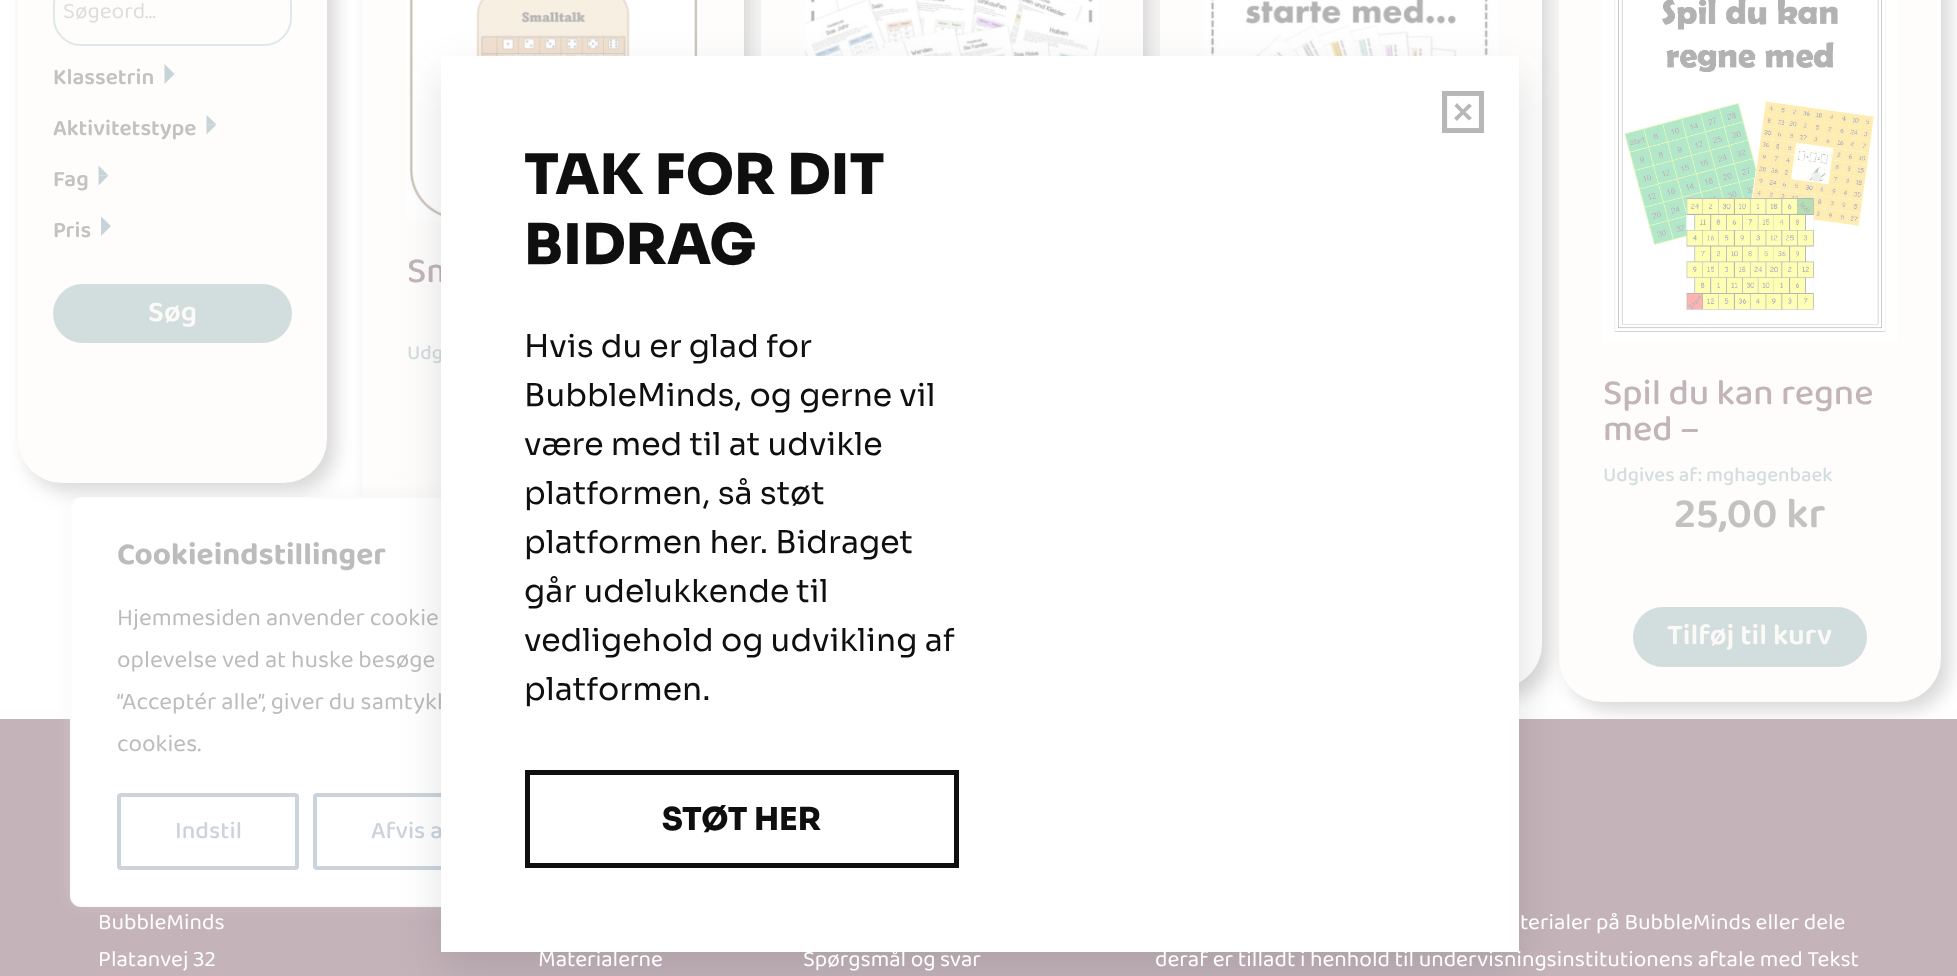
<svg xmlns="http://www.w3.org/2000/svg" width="1957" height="976">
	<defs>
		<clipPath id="clip1"><rect x="1442" y="91" width="42" height="42" /></clipPath>
	</defs>
	<rect width="100%" height="100%" fill="#FFFFFF" />
	<rect x="26" y="-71" width="310" height="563" rx="44" fill="#B3B3B3" fill-opacity="0.5" filter="blur(9px)" />
	<rect x="18" y="-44" width="309" height="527" rx="44" fill="#FEFDFC" />
	<rect x="54" y="-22" width="237" height="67" rx="27" fill="none" stroke="#E0E7EB" stroke-width="2" />
	<text x="63" y="18" font-family="'Baloo 2'" font-size="22.75" fill="#DEDDDD">Søgeord...</text>
	<g font-family="'Baloo 2'" font-size="22.75" font-weight="600" fill="#C2C2C2">
		<text x="53" y="84">Klassetrin</text>
		<text x="53" y="135">Aktivitetstype</text>
	</g>
	<path d="M164.5 64L174.5 74H164.5ZM174.5 74L164.5 84V74ZM206.5 115L216.5 124.5H206.5Z" fill="#C6D4DA" />
	<path d="M216.5 124.5L206.5 134.5V124.5Z" fill="#C6D4DA" />
	<text x="53" y="186" font-family="'Baloo 2'" font-size="22.75" font-weight="600" fill="#C2C2C2">Fag</text>
	<path d="M98.5 165.5L108.5 175.5H98.5Z" fill="#C6D4DA" />
	<path d="M108.5 175.5L98.5 185.5V175.5ZM101 216.5L111 226H101ZM111 226L101 236V226Z" fill="#C6D4DA" />
	<text x="53" y="237" font-family="'Baloo 2'" font-size="22.75" font-weight="600" fill="#C2C2C2">Pris</text>
	<rect x="53" y="284" width="239" height="59" rx="29.5" fill="#D2DEDE" />
	<text x="148" y="321" font-family="'Baloo 2'" font-size="29.5" font-weight="600" fill="#FCFAF7">Søg</text>
	<rect x="371" y="-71" width="382" height="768" rx="44" fill="#B3B3B3" fill-opacity="0.5" filter="blur(9px)" />
	<rect x="362" y="0" width="382" height="497" fill="#FEFDFC" />
	<image x="406" y="0" width="294" height="221" href="assets/img1.png" />
	<text x="407" y="282" font-family="'Baloo 2'" font-size="36.5" font-weight="500" fill="#C2B4B8">Sm</text>
	<text x="407" y="359" font-family="'Baloo 2'" font-size="20.5" font-weight="500" fill="#D2DEDE">Udg</text>
	<rect x="770" y="-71" width="382" height="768" rx="44" fill="#B3B3B3" fill-opacity="0.5" filter="blur(9px)" />
	<rect x="761" y="0" width="382" height="56" fill="#FEFDFC" />
	<image x="805" y="0" width="294" height="56" href="assets/img2.png" />
	<rect x="1169" y="-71" width="382" height="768" rx="44" fill="#B3B3B3" fill-opacity="0.5" filter="blur(9px)" />
	<rect x="1160" y="-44" width="382" height="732" rx="44" fill="#FEFDFC" />
	<image x="1204" y="0" width="294" height="56" href="assets/img3.png" />
	<rect x="1568" y="-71" width="382" height="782" rx="44" fill="#B3B3B3" fill-opacity="0.5" filter="blur(9px)" />
	<rect x="1559" y="-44" width="382" height="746" rx="44" fill="#FEFDFC" />
	<image x="1603" y="0" width="294" height="343" href="assets/img4.png" />
	<g font-family="'Baloo 2'" font-size="36.5" font-weight="500" fill="#C2B4B8">
		<text x="1603" y="404">Spil du kan regne</text>
		<text x="1603" y="440">med –</text>
	</g>
	<text x="1603" y="481" font-family="'Baloo 2'" font-size="20.5" font-weight="500" fill="#D2DEDE">Udgives af: mghagenbaek</text>
	<text x="1674" y="527" font-family="'Baloo 2'" font-size="43" font-weight="600" fill="#C2C2C2">25,00 kr</text>
	<rect x="1633" y="607" width="234" height="60" rx="30" fill="#D2DEDE" />
	<text x="1667" y="644" font-family="'Baloo 2'" font-size="29.5" font-weight="600" fill="#FCFAF7">Tilføj til kurv</text>
	<rect x="0" y="719" width="1957" height="257" fill="#C4B3B9" />
	<rect x="70" y="495" width="770" height="410" rx="11" fill="#E6E6E6" fill-opacity="0.3" filter="blur(9px)" />
	<rect x="71" y="498" width="768" height="408" rx="10" fill="#FFFFFF" stroke="#FCFCFC" stroke-width="2" />
	<text x="117" y="564" font-family="'Baloo 2'" font-size="31.5" font-weight="700" fill="#BCBCBC">Cookieindstillinger</text>
	<g font-family="'Baloo 2'" font-size="24.5" fill="#BCBCBC">
		<text x="117" y="625">Hjemmesiden anvender cookie</text>
		<text x="117" y="667">oplevelse ved at huske besøge</text>
		<text x="117" y="709">“Acceptér alle”, giver du samtykk</text>
		<text x="117" y="751">cookies.</text>
	</g>
	<rect x="119" y="795" width="178" height="73" rx="2" fill="none" stroke="#CBD4DB" stroke-width="4" />
	<text x="175" y="838" font-family="'Baloo 2'" font-size="24.5" font-weight="500" fill="#CBD4DB">Indstil</text>
	<rect x="315" y="795" width="208" height="73" rx="2" fill="none" stroke="#CBD4DB" stroke-width="4" />
	<text x="371" y="838" font-family="'Baloo 2'" font-size="24.5" font-weight="500" fill="#CBD4DB">Afvis a</text>
	<rect x="441" y="74" width="1078" height="896" fill="#363D4D" fill-opacity="0.15" filter="blur(21px)" />
	<rect x="441" y="56" width="1078" height="896" fill="#FFFFFF" />
	<g clip-path="url(#clip1)">
		<path d="M1481.5 93.5V130.5H1444.5V93.5Z" fill="none" stroke="#B7B7B7" stroke-width="5.2" />
	</g>
	<path d="M1472 106L1469 103.5L1463 109.5L1457 103L1454.5 106L1460.5 112L1454 118L1457 121L1463 114.5L1469 120.5L1472 118L1465.5 112Z" fill="#B7B7B7" />
	<g font-family="Sora" font-size="56" font-weight="800" fill="#0F0F0F">
		<text x="524" y="194">TAK FOR DIT</text>
		<text x="524" y="264">BIDRAG</text>
	</g>
	<g font-family="Sora" font-size="31.5" fill="#0F0F0F">
		<text x="524" y="357">Hvis du er glad for</text>
		<text x="524" y="406">BubbleMinds, og gerne vil</text>
		<text x="524" y="455">være med til at udvikle</text>
		<text x="524" y="504">platformen, så støt</text>
		<text x="524" y="553">platformen her. Bidraget</text>
		<text x="524" y="602">går udelukkende til</text>
		<text x="524" y="651">vedligehold og udvikling af</text>
		<text x="524" y="700">platformen.</text>
	</g>
	<rect x="527.5" y="772.5" width="429" height="93" fill="none" stroke="#0F0F0F" stroke-width="5" />
	<text x="662" y="830" font-family="Sora" font-size="31.5" font-weight="800" fill="#0F0F0F">STØT HER</text>
	<g font-family="'Baloo 2'" font-size="22.75" fill="#FFFFFF">
		<text x="98" y="929">BubbleMinds</text>
		<text x="98" y="966">Platanvej 32</text>
		<text x="538" y="966">Materialerne</text>
		<text x="803" y="966">Spørgsmål og svar</text>
		<text x="1520" y="929">terialer på BubbleMinds eller dele</text>
		<text x="1155" y="966">deraf er tilladt i henhold til undervisningsinstitutionens aftale med Tekst</text>
	</g>
</svg>
